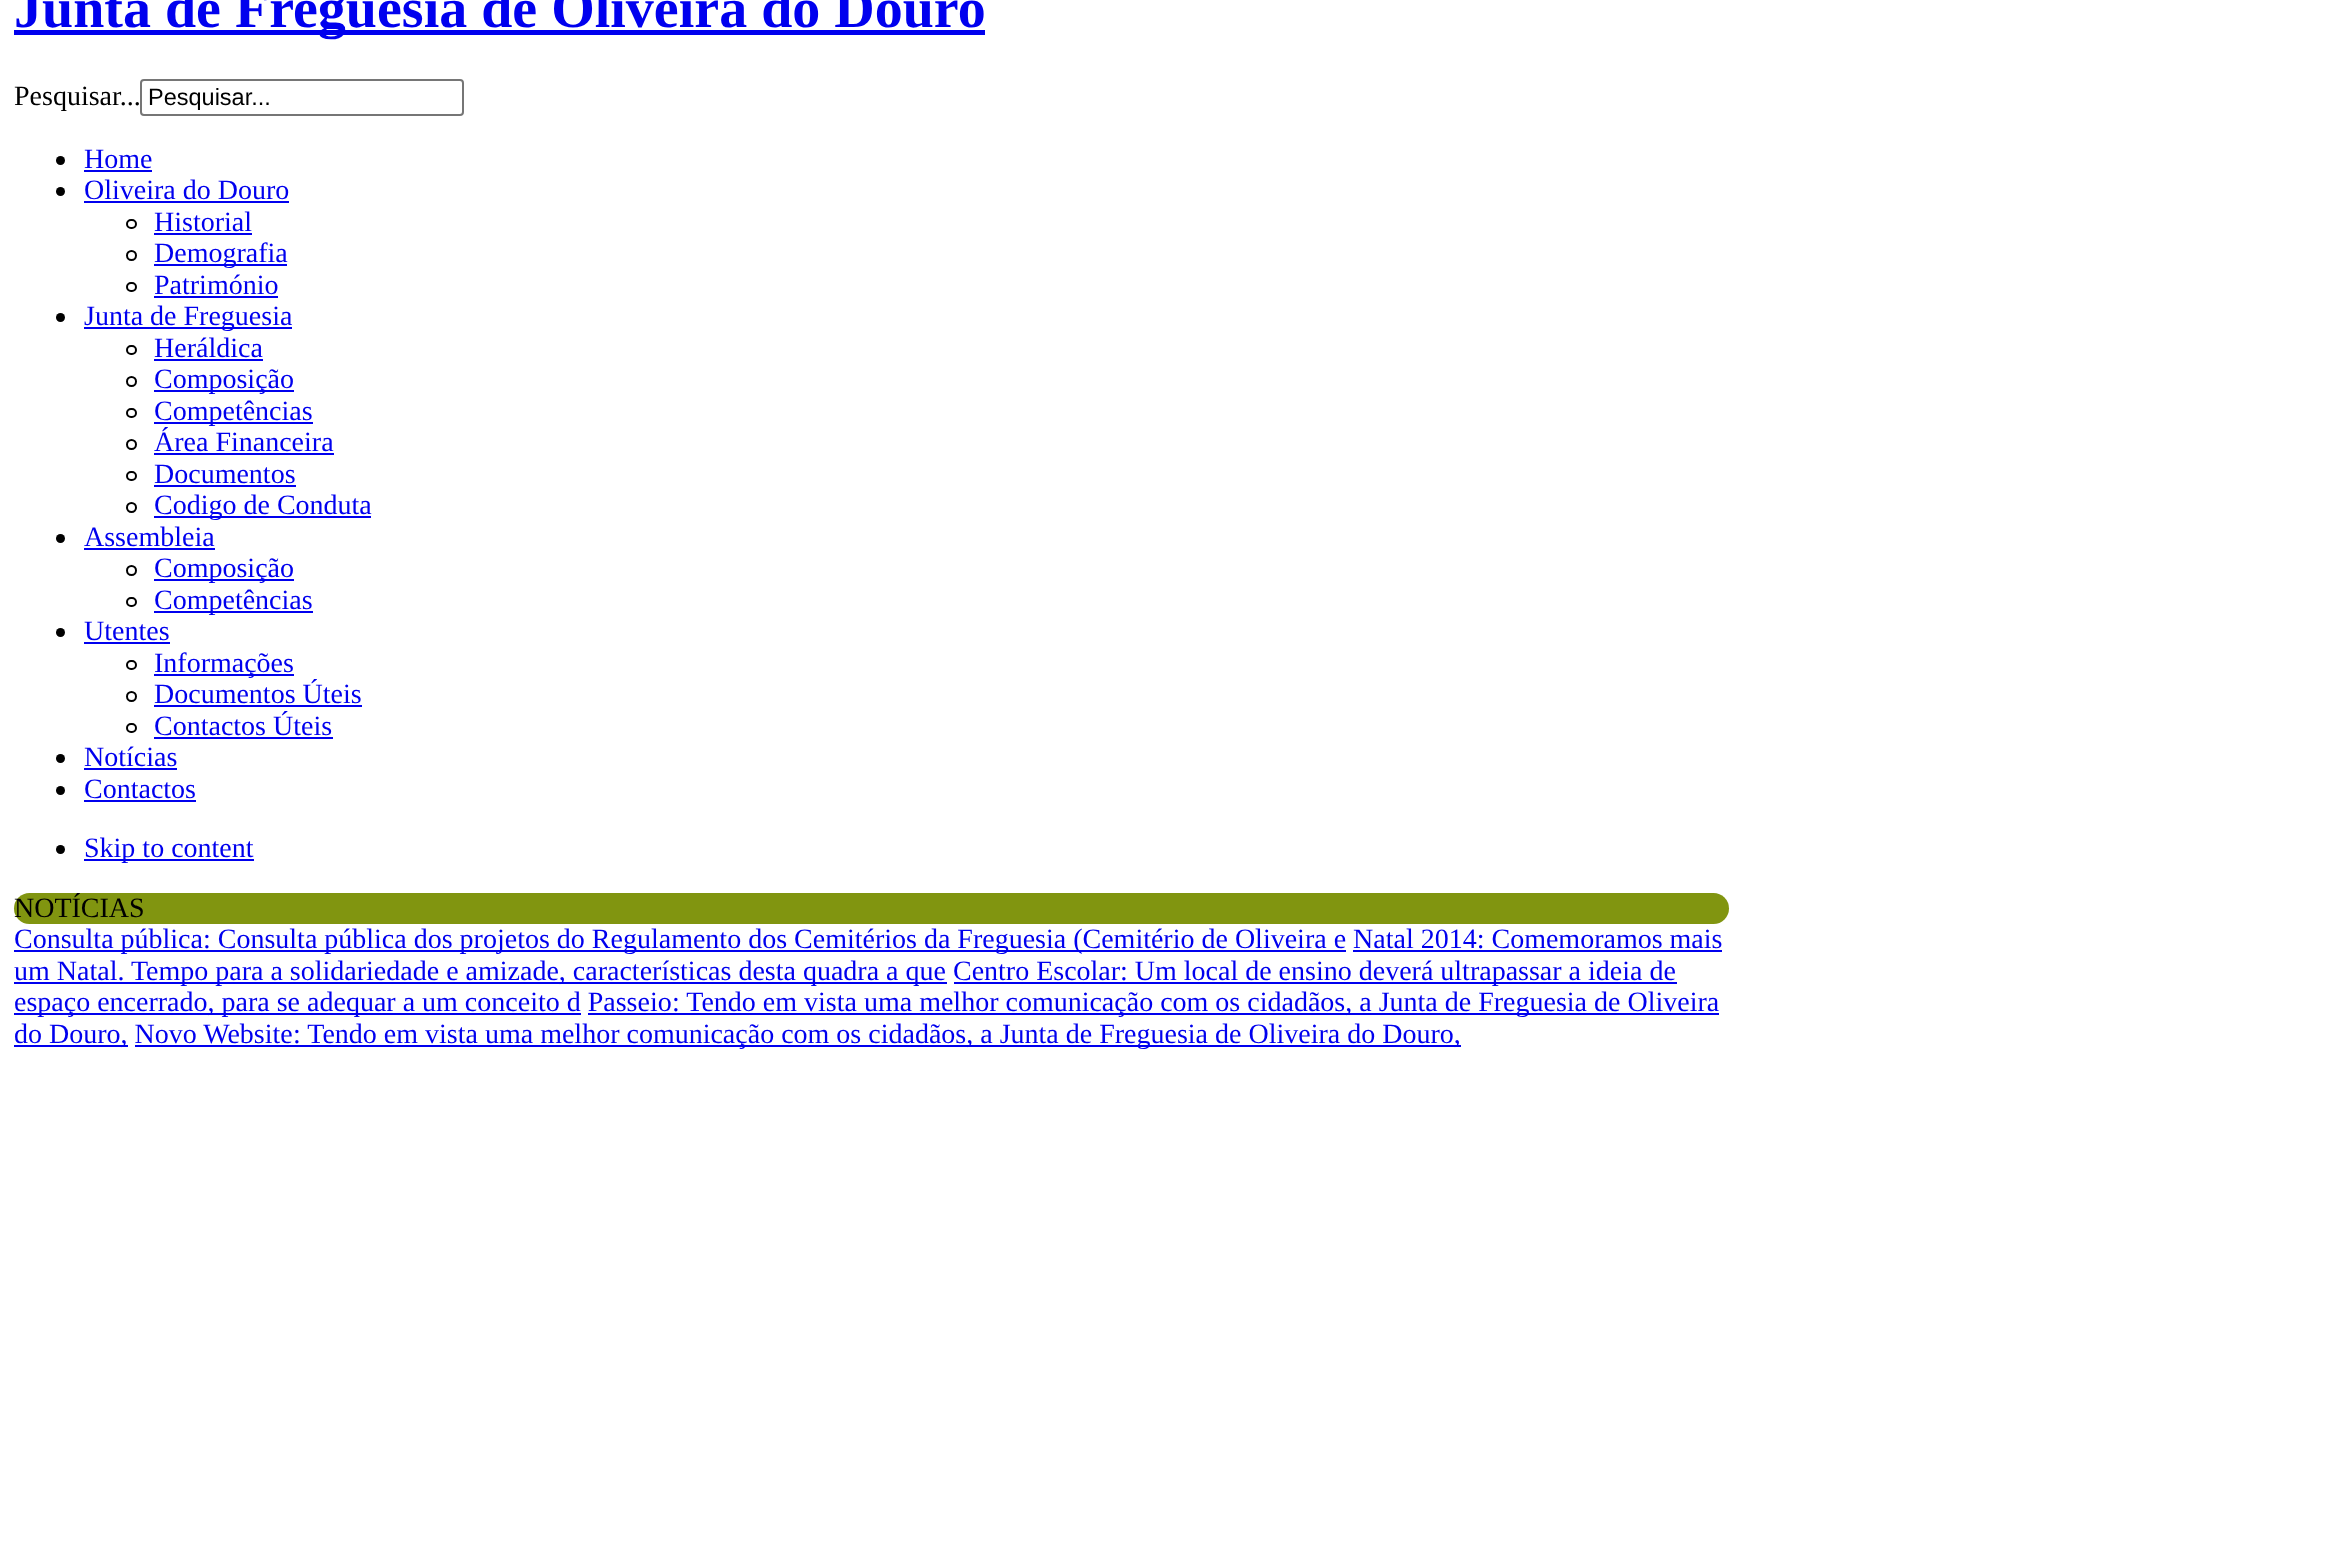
<svg xmlns="http://www.w3.org/2000/svg" width="2325" height="1548">
	<rect width="100%" height="100%" fill="#FFFFFF" />
	<rect x="14" y="30" width="971" height="5" fill="#0000EE" />
	<text x="14" y="27" font-family="Liberation Serif" font-size="56" font-weight="700" fill="#0000EE">Junta de Freguesia de Oliveira do Douro</text>
	<text x="14" y="105" font-family="Liberation Serif" font-size="28" fill="#000000">Pesquisar...</text>
	<rect x="141" y="80" width="322" height="35" rx="3" fill="none" stroke="#767676" stroke-width="2" />
	<text x="148" y="105" font-family="Liberation Sans" font-size="23.5" fill="#000000">Pesquisar...</text>
	<circle cx="60.5" cy="160.5" r="4.5" fill="#000000" />
	<text x="84" y="168" font-family="Liberation Serif" font-size="28" fill="#0000EE">Home</text>
	<rect x="84" y="170" width="68" height="2" fill="#0000EE" />
	<circle cx="60.5" cy="191.5" r="4.5" fill="#000000" />
	<text x="84" y="199" font-family="Liberation Serif" font-size="28" fill="#0000EE">Oliveira do Douro</text>
	<rect x="84" y="201" width="205" height="2" fill="#0000EE" />
	<rect x="127" y="220" width="9" height="8" rx="4" fill="none" stroke="#000000" stroke-width="2" />
	<text x="154" y="231" font-family="Liberation Serif" font-size="28" fill="#0000EE">Historial</text>
	<rect x="154" y="233" width="98" height="2" fill="#0000EE" />
	<circle cx="131.5" cy="255.5" r="4.5" fill="none" stroke="#000000" stroke-width="2" />
	<rect x="154" y="264" width="133" height="2" fill="#0000EE" />
	<text x="154" y="262" font-family="Liberation Serif" font-size="28" fill="#0000EE">Demografia</text>
	<rect x="127" y="283" width="9" height="8" rx="4" fill="none" stroke="#000000" stroke-width="2" />
	<text x="154" y="294" font-family="Liberation Serif" font-size="28" fill="#0000EE">Património</text>
	<rect x="154" y="296" width="124" height="2" fill="#0000EE" />
	<circle cx="60.5" cy="317.5" r="4.5" fill="#000000" />
	<rect x="84" y="327" width="208" height="2" fill="#0000EE" />
	<text x="84" y="325" font-family="Liberation Serif" font-size="28" fill="#0000EE">Junta de Freguesia</text>
	<rect x="127" y="346" width="9" height="8" rx="4" fill="none" stroke="#000000" stroke-width="2" />
	<text x="154" y="357" font-family="Liberation Serif" font-size="28" fill="#0000EE">Heráldica</text>
	<rect x="154" y="359" width="109" height="2" fill="#0000EE" />
	<circle cx="131.5" cy="381.5" r="4.5" fill="none" stroke="#000000" stroke-width="2" />
	<rect x="154" y="390" width="140" height="2" fill="#0000EE" />
	<text x="154" y="388" font-family="Liberation Serif" font-size="28" fill="#0000EE">Composição</text>
	<rect x="127" y="409" width="9" height="8" rx="4" fill="none" stroke="#000000" stroke-width="2" />
	<rect x="154" y="422" width="159" height="2" fill="#0000EE" />
	<text x="154" y="420" font-family="Liberation Serif" font-size="28" fill="#0000EE">Competências</text>
	<circle cx="131.5" cy="444.5" r="4.5" fill="none" stroke="#000000" stroke-width="2" />
	<text x="154" y="451" font-family="Liberation Serif" font-size="28" fill="#0000EE">Área Financeira</text>
	<rect x="154" y="453" width="180" height="2" fill="#0000EE" />
	<rect x="127" y="472" width="9" height="8" rx="4" fill="none" stroke="#000000" stroke-width="2" />
	<text x="154" y="483" font-family="Liberation Serif" font-size="28" fill="#0000EE">Documentos</text>
	<rect x="154" y="485" width="142" height="2" fill="#0000EE" />
	<circle cx="131.5" cy="507.5" r="4.5" fill="none" stroke="#000000" stroke-width="2" />
	<rect x="154" y="516" width="217" height="2" fill="#0000EE" />
	<text x="154" y="514" font-family="Liberation Serif" font-size="28" fill="#0000EE">Codigo de Conduta</text>
	<circle cx="60.5" cy="538.5" r="4.5" fill="#000000" />
	<text x="84" y="546" font-family="Liberation Serif" font-size="28" fill="#0000EE">Assembleia</text>
	<rect x="84" y="548" width="131" height="2" fill="#0000EE" />
	<circle cx="131.5" cy="570.5" r="4.5" fill="none" stroke="#000000" stroke-width="2" />
	<rect x="154" y="579" width="140" height="2" fill="#0000EE" />
	<text x="154" y="577" font-family="Liberation Serif" font-size="28" fill="#0000EE">Composição</text>
	<rect x="127" y="598" width="9" height="8" rx="4" fill="none" stroke="#000000" stroke-width="2" />
	<rect x="154" y="611" width="159" height="2" fill="#0000EE" />
	<text x="154" y="609" font-family="Liberation Serif" font-size="28" fill="#0000EE">Competências</text>
	<circle cx="60.5" cy="632.5" r="4.5" fill="#000000" />
	<text x="84" y="640" font-family="Liberation Serif" font-size="28" fill="#0000EE">Utentes</text>
	<rect x="84" y="642" width="86" height="2" fill="#0000EE" />
	<rect x="127" y="661" width="9" height="8" rx="4" fill="none" stroke="#000000" stroke-width="2" />
	<rect x="154" y="674" width="140" height="2" fill="#0000EE" />
	<text x="154" y="672" font-family="Liberation Serif" font-size="28" fill="#0000EE">Informações</text>
	<circle cx="131.5" cy="696.5" r="4.5" fill="none" stroke="#000000" stroke-width="2" />
	<text x="154" y="703" font-family="Liberation Serif" font-size="28" fill="#0000EE">Documentos Úteis</text>
	<rect x="154" y="705" width="208" height="2" fill="#0000EE" />
	<rect x="127" y="724" width="9" height="8" rx="4" fill="none" stroke="#000000" stroke-width="2" />
	<text x="154" y="735" font-family="Liberation Serif" font-size="28" fill="#0000EE">Contactos Úteis</text>
	<rect x="154" y="737" width="179" height="2" fill="#0000EE" />
	<circle cx="60.5" cy="758.5" r="4.5" fill="#000000" />
	<text x="84" y="766" font-family="Liberation Serif" font-size="28" fill="#0000EE">Notícias</text>
	<rect x="84" y="768" width="93" height="2" fill="#0000EE" />
	<circle cx="60.5" cy="790.5" r="4.5" fill="#000000" />
	<text x="84" y="798" font-family="Liberation Serif" font-size="28" fill="#0000EE">Contactos</text>
	<rect x="84" y="800" width="112" height="2" fill="#0000EE" />
	<circle cx="60.5" cy="849.5" r="4.5" fill="#000000" />
	<rect x="84" y="859" width="170" height="2" fill="#0000EE" />
	<text x="84" y="857" font-family="Liberation Serif" font-size="28" fill="#0000EE">Skip to content</text>
	<rect x="14" y="893" width="1715" height="31" rx="15.5" fill="#819510" />
	<text x="14" y="917" font-family="Liberation Serif" font-size="28" fill="#000000">NOTÍCIAS</text>
	<rect x="14" y="950" width="1332" height="2" fill="#0000EE" />
	<text x="14" y="948" font-family="Liberation Serif" font-size="28" fill="#0000EE">Consulta pública: Consulta pública dos projetos do Regulamento dos Cemitérios da Freguesia (Cemitério de Oliveira e Natal 2014: Comemoramos mais</text>
	<rect x="14" y="982" width="933" height="2" fill="#0000EE" />
	<text x="14" y="980" font-family="Liberation Serif" font-size="28" fill="#0000EE">um Natal. Tempo para a solidariedade e amizade, características desta quadra a que Centro Escolar</text>
	<rect x="1353" y="950" width="369" height="2" fill="#0000EE" />
	<rect x="954" y="982" width="723" height="2" fill="#0000EE" />
	<text x="1120" y="980" font-family="Liberation Serif" font-size="28" fill="#0000EE">: Um local de ensino deverá ultrapassar a ideia de</text>
	<rect x="14" y="1013" width="567" height="2" fill="#0000EE" />
	<text x="14" y="1011" font-family="Liberation Serif" font-size="28" fill="#0000EE">espaço encerrado, para se adequar a um conceito d Passeio</text>
	<rect x="588" y="1013" width="1131" height="2" fill="#0000EE" />
	<text x="672" y="1011" font-family="Liberation Serif" font-size="28" fill="#0000EE">: Tendo em vista uma melhor comunicação com os cidadãos, a Junta de Freguesia de Oliveira</text>
	<rect x="14" y="1045" width="114" height="2" fill="#0000EE" />
	<text x="14" y="1043" font-family="Liberation Serif" font-size="28" fill="#0000EE">do Douro, Novo Website</text>
	<rect x="135" y="1045" width="1326" height="2" fill="#0000EE" />
	<text x="293" y="1043" font-family="Liberation Serif" font-size="28" fill="#0000EE">: Tendo em vista uma melhor comunicação com os cidadãos, a Junta de Freguesia de Oliveira do Douro,</text>
</svg>
